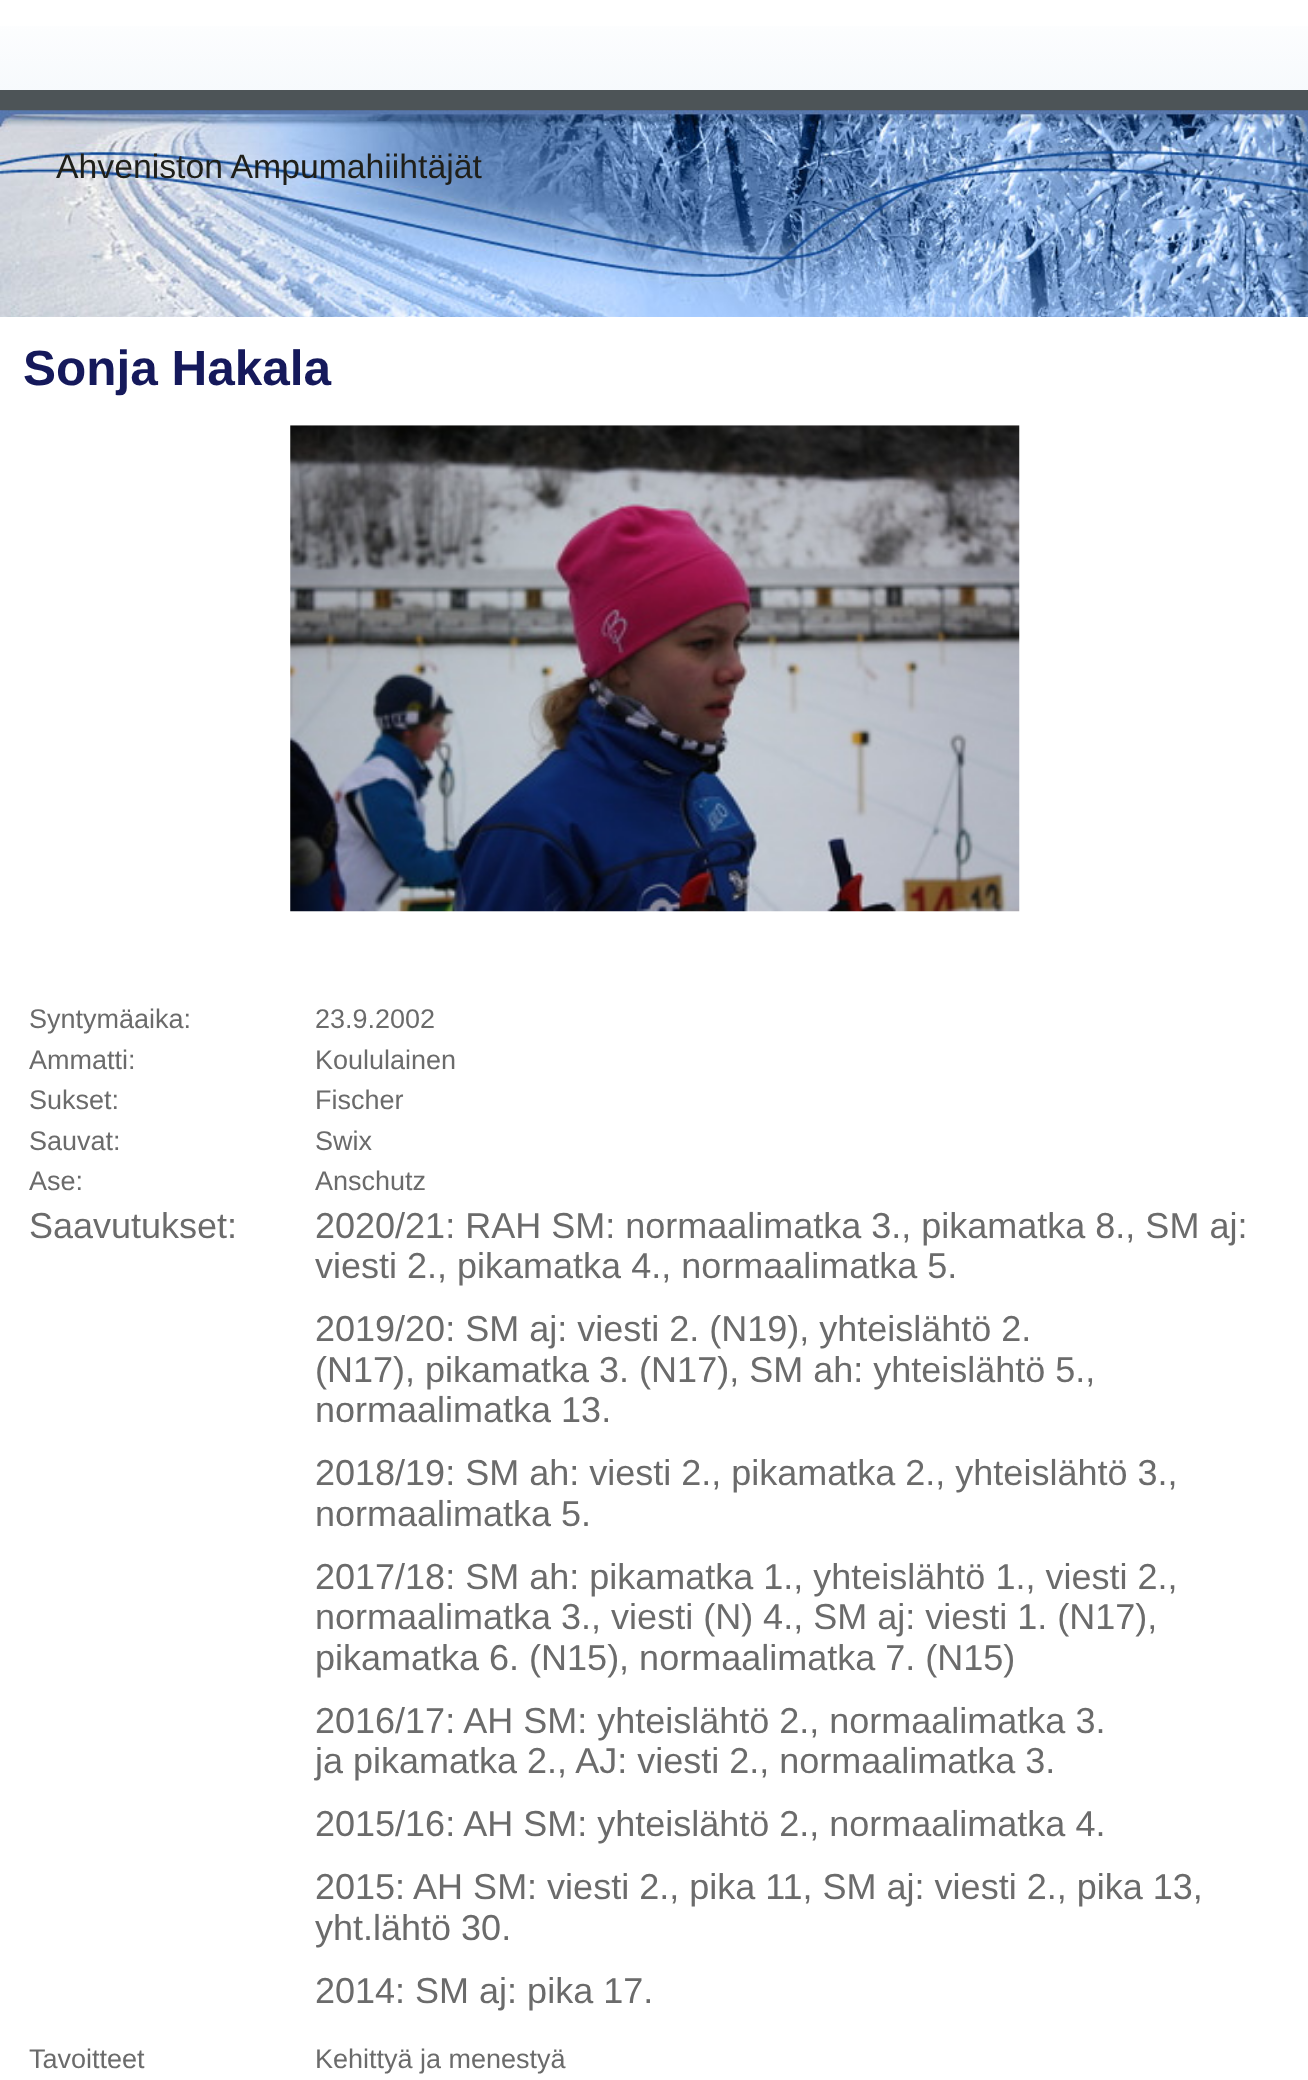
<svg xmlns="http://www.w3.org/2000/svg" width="1308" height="2080">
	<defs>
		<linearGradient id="g1" gradientUnits="userSpaceOnUse" x1="655" y1="0" x2="655" y2="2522"><stop offset="0" stop-color="#FFFFFF" /><stop offset="0.4" stop-color="#9FC1E3" /><stop offset="1" stop-color="#9FC1E3" /></linearGradient>
	</defs>
	<rect width="100%" height="100%" fill="#FFFFFF" />
	<rect x="0" y="26" width="1308" height="64" fill="url(#g1)" />
	<rect x="0" y="90" width="1308" height="21" fill="#4D5457" />
	<image x="0" y="110" width="1308" height="207" href="assets/img1.png" />
	<text x="56" y="178" font-family="Liberation Sans" font-size="33.75" fill="#1F1F19">Ahveniston Ampumahiihtäjät</text>
	<text x="23" y="385" font-family="Liberation Sans" font-size="49.5" font-weight="700" fill="#15195B">Sonja Hakala</text>
	<image x="290" y="425" width="730" height="487" href="assets/img2.png" />
	<g font-family="Liberation Sans" font-size="27" fill="#6B6B6B">
		<text x="29" y="1028">Syntymäaika:</text>
		<text x="315" y="1028">23.9.2002</text>
		<text x="29" y="1069">Ammatti:</text>
		<text x="315" y="1069">Koululainen</text>
		<text x="29" y="1109">Sukset:</text>
		<text x="315" y="1109">Fischer</text>
		<text x="29" y="1150">Sauvat:</text>
		<text x="315" y="1150">Swix</text>
		<text x="29" y="1190">Ase:</text>
		<text x="315" y="1190">Anschutz</text>
	</g>
	<g font-family="Liberation Sans" font-size="36" fill="#6B6B6B">
		<text x="29" y="1238">Saavutukset:</text>
		<text x="315" y="1238">2020/21: RAH SM: normaalimatka 3., pikamatka 8., SM aj:</text>
		<text x="315" y="1278">viesti 2., pikamatka 4., normaalimatka 5.</text>
		<text x="315" y="1341">2019/20: SM aj: viesti 2. (N19), yhteislähtö 2.</text>
		<text x="315" y="1382">(N17), pikamatka 3. (N17), SM ah: yhteislähtö 5.,</text>
		<text x="315" y="1422">normaalimatka 13.</text>
		<text x="315" y="1485">2018/19: SM ah: viesti 2., pikamatka 2., yhteislähtö 3.,</text>
		<text x="315" y="1526">normaalimatka 5.</text>
		<text x="315" y="1589">2017/18: SM ah: pikamatka 1., yhteislähtö 1., viesti 2.,</text>
		<text x="315" y="1629">normaalimatka 3., viesti (N) 4., SM aj: viesti 1. (N17),</text>
		<text x="315" y="1670">pikamatka 6. (N15), normaalimatka 7. (N15)</text>
		<text x="315" y="1733">2016/17: AH SM: yhteislähtö 2., normaalimatka 3.</text>
		<text x="315" y="1773">ja pikamatka 2., AJ: viesti 2., normaalimatka 3.</text>
		<text x="315" y="1836">2015/16: AH SM: yhteislähtö 2., normaalimatka 4.</text>
		<text x="315" y="1899">2015: AH SM: viesti 2., pika 11, SM aj: viesti 2., pika 13,</text>
		<text x="315" y="1940">yht.lähtö 30.</text>
		<text x="315" y="2003">2014: SM aj: pika 17.</text>
	</g>
	<g font-family="Liberation Sans" font-size="27" fill="#6B6B6B">
		<text x="29" y="2068">Tavoitteet</text>
		<text x="315" y="2068">Kehittyä ja menestyä</text>
	</g>
</svg>
